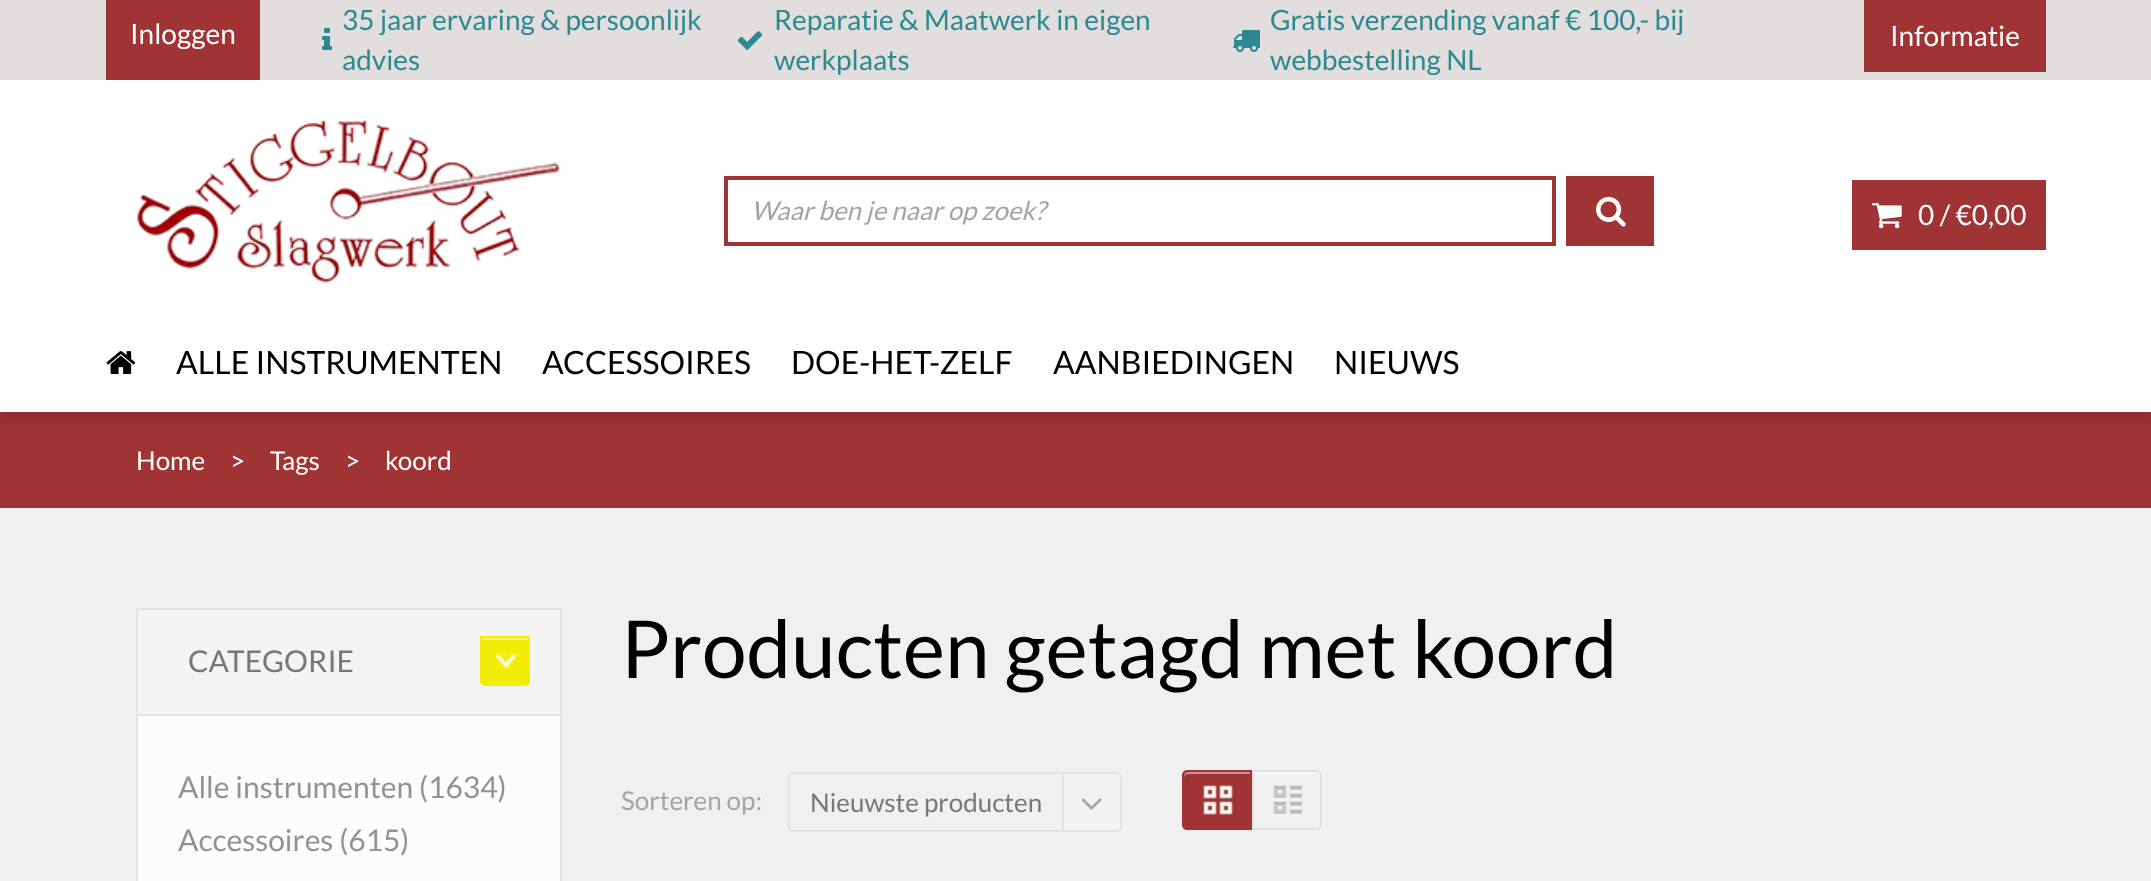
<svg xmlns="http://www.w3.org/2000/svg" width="2151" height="881">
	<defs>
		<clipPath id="clip1"><rect x="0" y="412" width="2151" height="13" /></clipPath>
	</defs>
	<rect width="100%" height="100%" fill="#F1F0F0" />
	<rect x="0" y="0" width="2151" height="80" fill="#E2DEDE" />
	<rect x="106" y="0" width="154" height="80" fill="#A03333" />
	<text x="130" y="44" font-family="Lato" font-size="28" fill="#FFFFFF">Inloggen</text>
	<image x="322" y="28" width="10" height="22" href="assets/img1.png" />
	<g font-family="Lato" font-size="28" fill="#2C8991">
		<text x="342" y="30">35 jaar ervaring &amp; persoonlijk</text>
		<text x="342" y="70">advies</text>
	</g>
	<image x="737" y="31" width="26" height="19" href="assets/img2.png" />
	<g font-family="Lato" font-size="28" fill="#2C8991">
		<text x="774" y="30">Reparatie &amp; Maatwerk in eigen</text>
		<text x="774" y="70">werkplaats</text>
	</g>
	<image x="1233" y="30" width="27" height="22" href="assets/img3.png" />
	<g font-family="Lato" font-size="28" fill="#2C8991">
		<text x="1270" y="30">Gratis verzending vanaf € 100,- bij</text>
		<text x="1270" y="70">webbestelling NL</text>
	</g>
	<rect x="1864" y="0" width="182" height="72" fill="#A03333" />
	<text x="1890" y="46" font-family="Lato" font-size="28" fill="#FFFFFF">Informatie</text>
	<rect x="0" y="80" width="2151" height="332" fill="#FFFFFF" />
	<image x="136" y="120" width="424" height="163" href="assets/img4.png" />
	<rect x="726" y="178" width="828" height="66" fill="none" stroke="#A03333" stroke-width="4" />
	<text x="751" y="220" font-family="Lato" font-size="26" font-style="italic" fill="#A4A4A4">Waar ben je naar op zoek?</text>
	<rect x="1566" y="176" width="88" height="70" fill="#A03333" />
	<image x="1596" y="196" width="30" height="31" href="assets/img5.png" />
	<rect x="1852" y="180" width="194" height="70" fill="#A03333" />
	<image x="1872" y="203" width="30" height="26" href="assets/img6.png" />
	<text x="1918" y="225" font-family="Lato" font-size="28" fill="#FFFFFF">0 / €0,00</text>
	<rect x="0" y="412" width="2151" height="96" fill="#A03333" />
	<g clip-path="url(#clip1)">
		<rect x="0" y="324" width="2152" height="98" fill="#000000" fill-opacity="0.1" filter="blur(4px)" />
	</g>
	<image x="106" y="351" width="30" height="23" href="assets/img7.png" />
	<g font-family="Lato" font-size="32" fill="#000000">
		<text x="176" y="374">ALLE INSTRUMENTEN</text>
		<text x="542" y="374">ACCESSOIRES</text>
		<text x="791" y="374">DOE-HET-ZELF</text>
		<text x="1053" y="374">AANBIEDINGEN</text>
		<text x="1334" y="374">NIEUWS</text>
	</g>
	<g font-family="Lato" font-size="26" fill="#FFFFFF">
		<text x="136" y="470">Home</text>
		<text x="230" y="470">&gt;</text>
		<text x="270" y="470">Tags</text>
		<text x="345" y="470">&gt;</text>
		<text x="385" y="470">koord</text>
	</g>
	<rect x="136" y="610" width="426" height="104" fill="#F4F4F4" />
	<rect x="136" y="608" width="426" height="2" fill="#E4E2E2" />
	<path d="M562 608V714L560 712V610Z" fill="#E4E2E2" />
	<path d="M136 714V608L138 610V712Z" fill="#E4E2E2" />
	<text x="188" y="672" font-family="Lato" font-size="30" fill="#777777">CATEGORIE</text>
	<path d="M480 636H530V680C530 683.5 527.5 686 524 686H486C482.5 686 480 683.5 480 680Z" fill="#F2ED08" />
	<image x="495" y="653" width="22" height="16" href="assets/img8.png" />
	<rect x="482" y="638" width="46" height="2" fill="#F7F46B" />
	<path d="M481 637H529V680C529 683 527 685 524 685H486C483 685 481 683 481 680Z" fill="none" stroke="#F2ED08" stroke-width="2" />
	<rect x="138" y="716" width="422" height="165" fill="#FCFCFC" />
	<rect x="136" y="714" width="426" height="2" fill="#E4E2E2" />
	<path d="M562 714V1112L560 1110V716Z" fill="#E4E2E2" />
	<path d="M136 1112V714L138 716V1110Z" fill="#E4E2E2" />
	<g font-family="Lato" font-size="30" fill="#939292">
		<text x="178" y="798">Alle instrumenten (1634)</text>
		<text x="178" y="851">Accessoires (615)</text>
	</g>
	<text x="621" y="678" font-family="Lato" font-size="80" fill="#000000">Producten getagd met koord</text>
	<text x="621" y="810" font-family="Lato" font-size="26" fill="#A4A4A4">Sorteren op:</text>
	<path d="M792 773H1063V831H792C790.5 831 789 829.5 789 828V776C789 774.5 790.5 773 792 773Z" fill="none" stroke="#E4E2E2" stroke-width="2" />
	<text x="810" y="812" font-family="Lato" font-size="26" fill="#777777">Nieuwste producten</text>
	<path d="M1063 773H1116C1119 773 1121 775 1121 778V826C1121 829 1119 831 1116 831H1063Z" fill="#F2F2F2" stroke="#E4E2E2" stroke-width="2" />
	<image x="1081" y="798" width="21" height="12" href="assets/img9.png" />
	<path d="M1188 770H1252V830H1188C1184.5 830 1182 827.5 1182 824V776C1182 772.5 1184.5 770 1188 770Z" fill="#A03333" />
	<image x="1203" y="785" width="30" height="30" href="assets/img10.png" />
	<path d="M1188 774H1250V772H1188C1186 772 1184 774 1184 776V778C1184 776 1186 774 1188 774Z" fill="#CB8F8F" />
	<path d="M1188 771H1251V829H1188C1185 829 1183 827 1183 824V776C1183 773 1185 771 1188 771Z" fill="none" stroke="#A03333" stroke-width="2" />
	<image x="1273" y="785" width="30" height="31" href="assets/img11.png" />
	<path d="M1254 774H1316C1318 774 1320 776 1320 778V776C1320 774 1318 772 1316 772H1254Z" fill="#F8F8F8" />
	<path d="M1253 771H1316C1319 771 1321 773 1321 776V824C1321 827 1319 829 1316 829H1253Z" fill="none" stroke="#E0E0E0" stroke-width="2" />
</svg>
